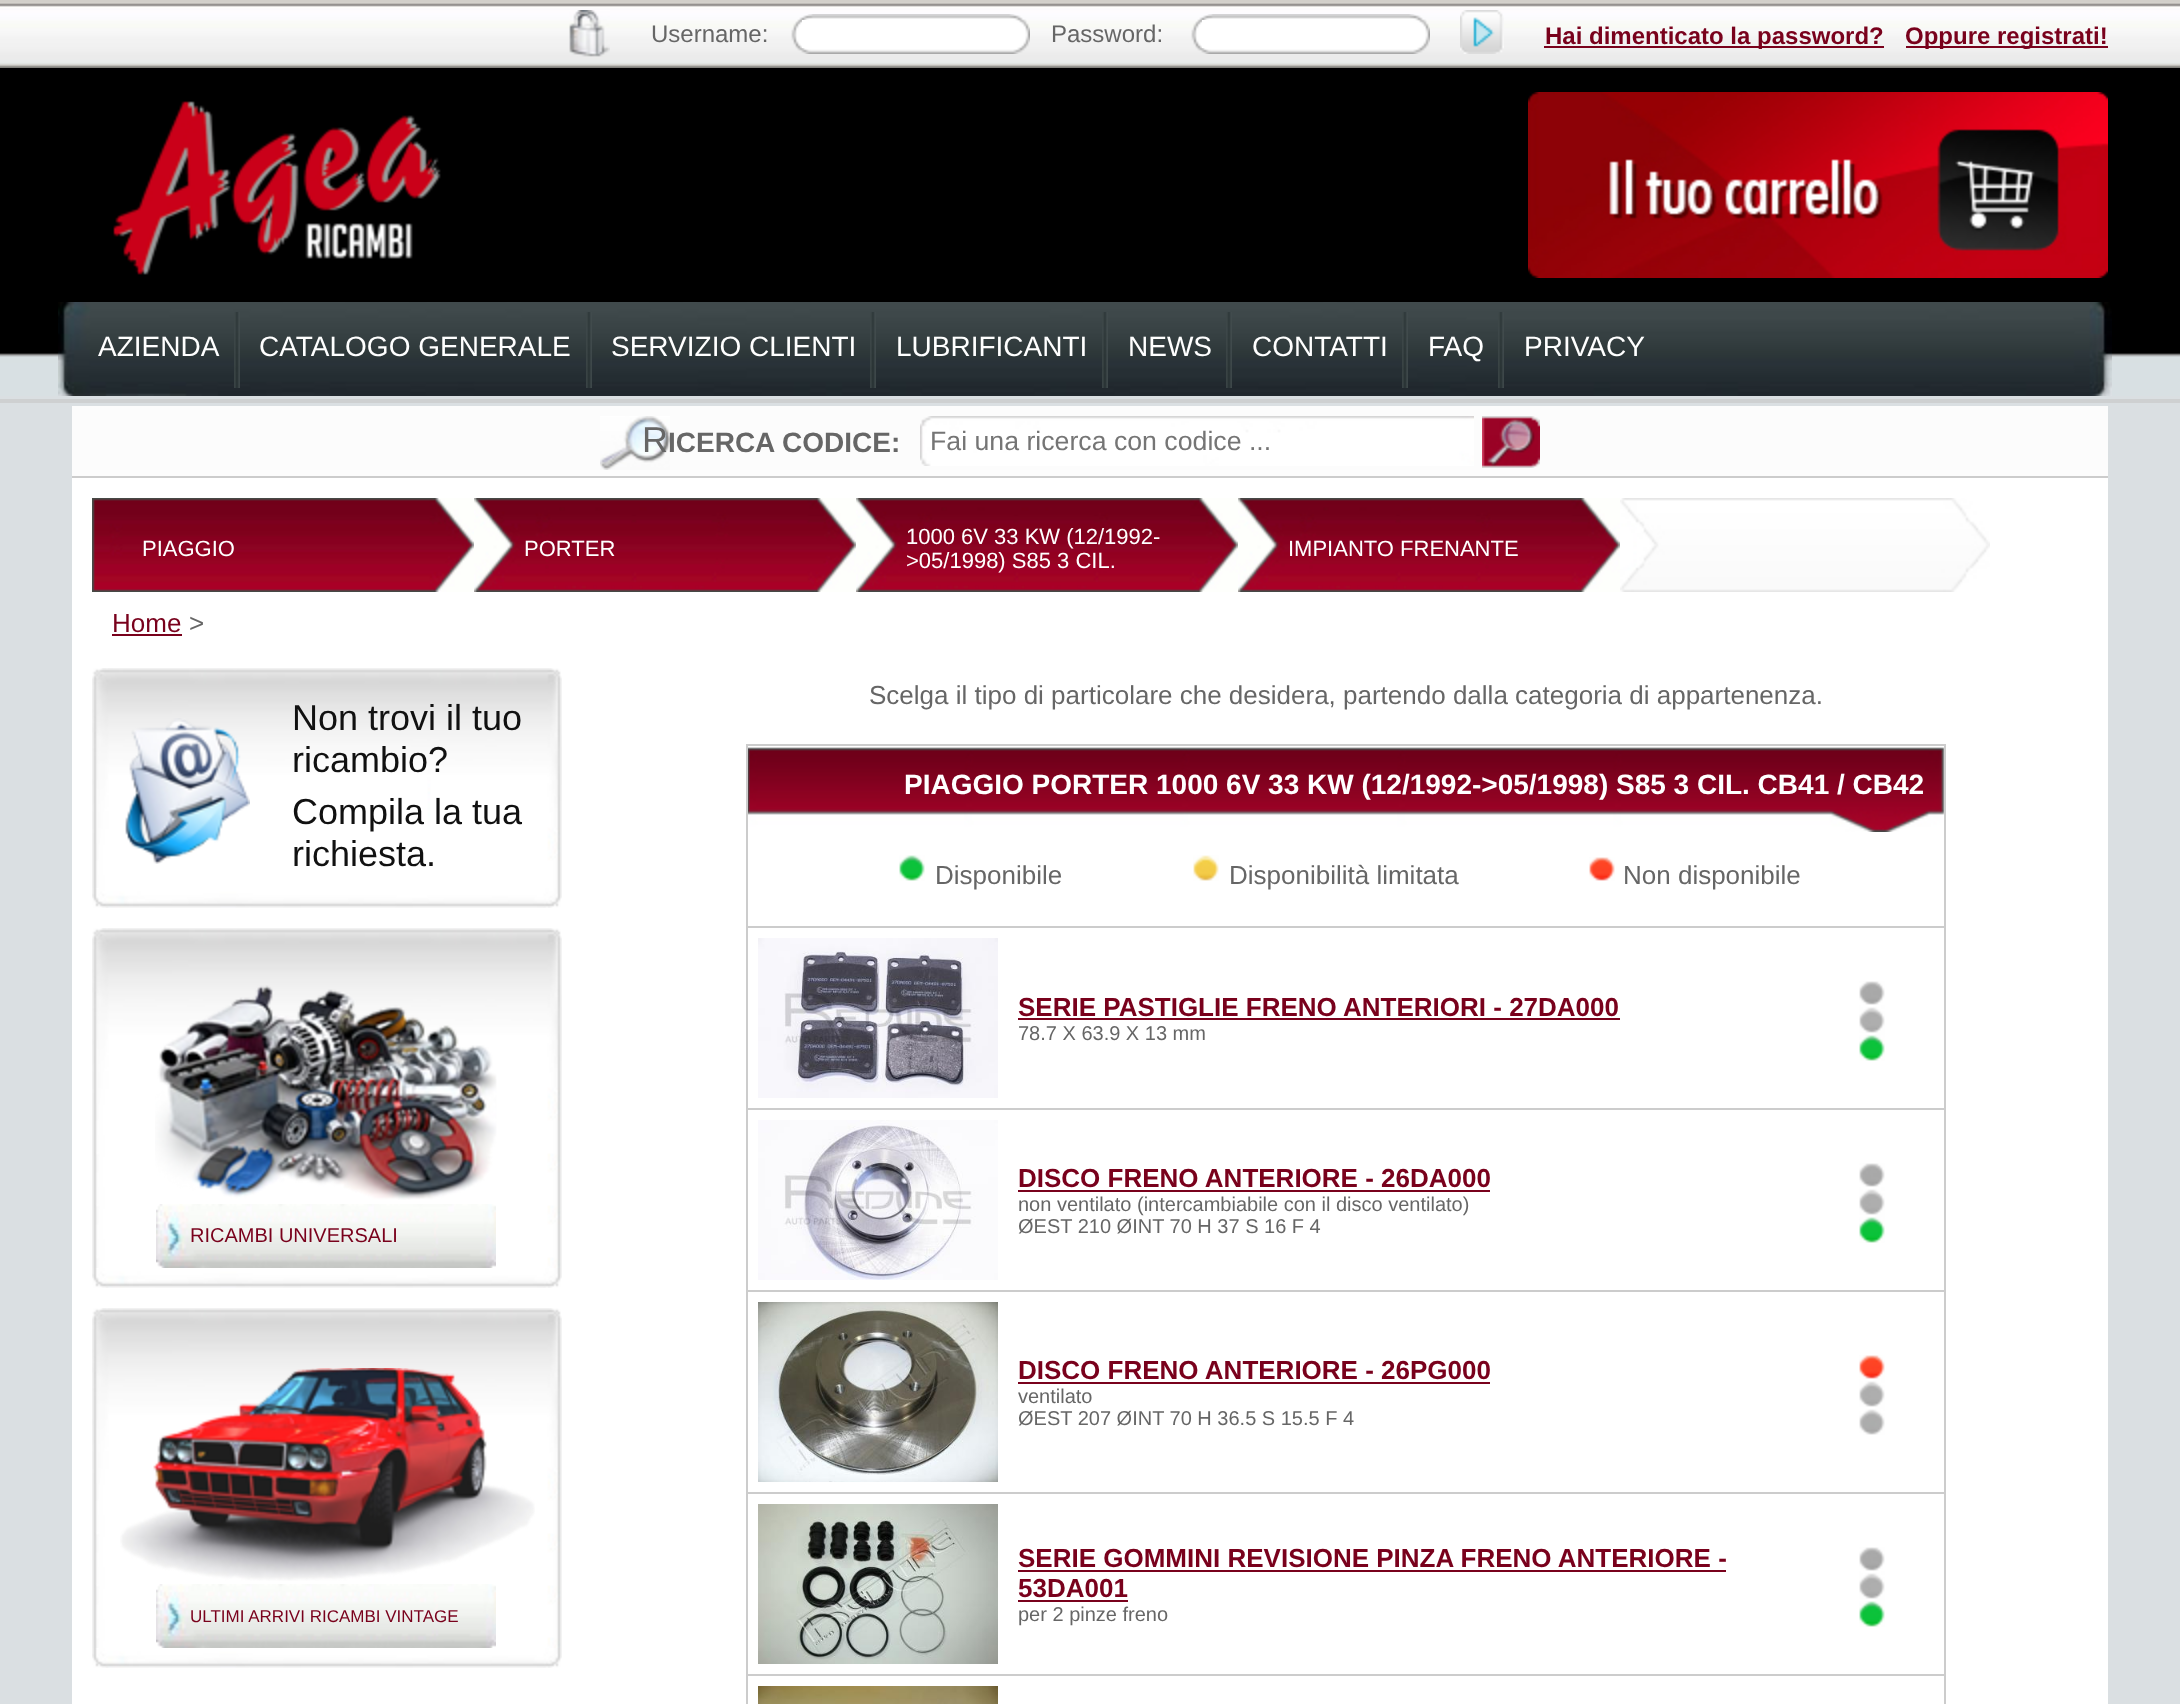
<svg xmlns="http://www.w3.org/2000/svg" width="2180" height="1704">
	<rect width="100%" height="100%" fill="#000000" />
	<image x="0" y="0" width="2180" height="68" href="assets/img1.png" />
	<image x="569" y="10" width="41" height="47" href="assets/img2.png" />
	<image x="791" y="14" width="239" height="40" href="assets/img3.png" />
	<text x="651" y="42" font-family="Liberation Sans" font-size="24" fill="#666666">Username:</text>
	<rect x="802" y="20" width="6" height="28" fill="#FFFFFF" />
	<image x="1191" y="14" width="239" height="40" href="assets/img3.png" />
	<text x="1051" y="42" font-family="Liberation Sans" font-size="24" fill="#666666">Password:</text>
	<rect x="1202" y="20" width="6" height="28" fill="#FFFFFF" />
	<image x="1460" y="10" width="44" height="44" href="assets/img4.png" />
	<rect x="1544" y="46" width="340" height="2" fill="#79011C" />
	<text x="1545" y="44" font-family="Liberation Sans" font-size="24" font-weight="700" fill="#79011C">Hai dimenticato la password?</text>
	<rect x="1906" y="46" width="202" height="2" fill="#79011C" />
	<text x="1905" y="44" font-family="Liberation Sans" font-size="24" font-weight="700" fill="#79011C">Oppure registrati!</text>
	<image x="113" y="101" width="328" height="174" href="assets/img5.png" />
	<image x="1528" y="92" width="580" height="186" href="assets/img6.png" />
	<image x="0" y="302" width="2180" height="94" href="assets/img7.png" />
	<image x="58" y="302" width="2054" height="94" href="assets/img8.png" />
	<image x="234" y="312" width="6" height="76" href="assets/img9.png" />
	<text x="98" y="356" font-family="Liberation Sans" font-size="28" fill="#FFFFFF">AZIENDA</text>
	<image x="586" y="312" width="6" height="76" href="assets/img9.png" />
	<text x="259" y="356" font-family="Liberation Sans" font-size="28" fill="#FFFFFF">CATALOGO GENERALE</text>
	<image x="870" y="312" width="6" height="76" href="assets/img9.png" />
	<text x="611" y="356" font-family="Liberation Sans" font-size="28" fill="#FFFFFF">SERVIZIO CLIENTI</text>
	<image x="1102" y="312" width="6" height="76" href="assets/img9.png" />
	<text x="896" y="356" font-family="Liberation Sans" font-size="28" fill="#FFFFFF">LUBRIFICANTI</text>
	<image x="1226" y="312" width="6" height="76" href="assets/img9.png" />
	<text x="1128" y="356" font-family="Liberation Sans" font-size="28" fill="#FFFFFF">NEWS</text>
	<image x="1402" y="312" width="6" height="76" href="assets/img9.png" />
	<text x="1252" y="356" font-family="Liberation Sans" font-size="28" fill="#FFFFFF">CONTATTI</text>
	<image x="1498" y="312" width="6" height="76" href="assets/img9.png" />
	<g font-family="Liberation Sans" font-size="28" fill="#FFFFFF">
		<text x="1428" y="356">FAQ</text>
		<text x="1524" y="356">PRIVACY</text>
	</g>
	<rect x="0" y="396" width="2180" height="1308" fill="#DADFE2" />
	<rect x="0" y="399" width="2180" height="4" fill="#CED0D1" />
	<rect x="72" y="478" width="2036" height="1226" fill="#FFFFFF" />
	<rect x="72" y="406" width="2036" height="70" fill="#FCFCFC" />
	<rect x="72" y="476" width="2036" height="2" fill="#CCCCCC" />
	<image x="600" y="416" width="70" height="54" href="assets/img10.png" />
	<text x="642" y="452" font-family="Liberation Sans" font-size="36" fill="#666666">R</text>
	<text x="668" y="452" font-family="Liberation Sans" font-size="28" font-weight="700" fill="#666666">ICERCA CODICE:</text>
	<image x="920" y="416" width="554" height="50" href="assets/img11.png" />
	<text x="930" y="450" font-family="Liberation Sans" font-size="26.7" fill="#757575">Fai una ricerca con codice ...</text>
	<image x="1482" y="416" width="58" height="52" href="assets/img12.png" />
	<image x="92" y="498" width="382" height="94" href="assets/img13.png" />
	<text x="142" y="556" font-family="Liberation Sans" font-size="22" fill="#FFFFFF">PIAGGIO</text>
	<image x="474" y="498" width="382" height="94" href="assets/img14.png" />
	<text x="524" y="556" font-family="Liberation Sans" font-size="22" fill="#FFFFFF">PORTER</text>
	<image x="856" y="498" width="382" height="94" href="assets/img14.png" />
	<g font-family="Liberation Sans" font-size="22" fill="#FFFFFF">
		<text x="906" y="544">1000 6V 33 KW (12/1992-</text>
		<text x="906" y="568">&gt;05/1998) S85 3 CIL.</text>
	</g>
	<image x="1238" y="498" width="382" height="94" href="assets/img14.png" />
	<text x="1288" y="556" font-family="Liberation Sans" font-size="22" fill="#FFFFFF">IMPIANTO FRENANTE</text>
	<image x="1620" y="498" width="370" height="94" href="assets/img15.png" />
	<text x="112" y="632" font-family="Liberation Sans" font-size="26" fill="#79011C">Home</text>
	<rect x="112" y="634" width="70" height="2" fill="#79011C" />
	<text x="189" y="632" font-family="Liberation Sans" font-size="26" fill="#666666">&gt;</text>
	<image x="92" y="668" width="470" height="220" href="assets/img16.png" />
	<image x="125" y="718" width="125" height="146" href="assets/img17.png" />
	<g font-family="Liberation Sans" font-size="36" fill="#111111">
		<text x="292" y="730">Non trovi il tuo</text>
		<text x="292" y="772">ricambio?</text>
		<text x="292" y="824">Compila la tua</text>
		<text x="292" y="866">richiesta.</text>
	</g>
	<image x="92" y="888" width="470" height="20" href="assets/img18.png" />
	<image x="92" y="928" width="470" height="340" href="assets/img19.png" />
	<image x="155" y="985" width="342" height="215" href="assets/img20.png" />
	<image x="156" y="1204" width="340" height="64" href="assets/img21.png" />
	<text x="190" y="1242" font-family="Liberation Sans" font-size="20" fill="#79011C">RICAMBI UNIVERSALI</text>
	<image x="92" y="1268" width="470" height="20" href="assets/img18.png" />
	<image x="92" y="1308" width="470" height="340" href="assets/img19.png" />
	<image x="120" y="1368" width="415" height="213" href="assets/img22.png" />
	<image x="156" y="1584" width="340" height="64" href="assets/img21.png" />
	<text x="190" y="1622" font-family="Liberation Sans" font-size="17" fill="#79011C">ULTIMI ARRIVI RICAMBI VINTAGE</text>
	<image x="92" y="1648" width="470" height="20" href="assets/img18.png" />
	<text x="869" y="704" font-family="Liberation Sans" font-size="26" fill="#666666">Scelga il tipo di particolare che desidera, partendo dalla categoria di appartenenza.</text>
	<rect x="746" y="744" width="1200" height="2" fill="#CCCCCC" />
	<rect x="1944" y="744" width="2" height="960" fill="#CCCCCC" />
	<rect x="746" y="744" width="2" height="960" fill="#CCCCCC" />
	<image x="748" y="747" width="1196" height="85" href="assets/img23.png" />
	<text x="904" y="794" font-family="Liberation Sans" font-size="28" font-weight="700" fill="#FFFFFF">PIAGGIO PORTER 1000 6V 33 KW (12/1992-&gt;05/1998) S85 3 CIL. CB41 / CB42</text>
	<rect x="746" y="926" width="1200" height="2" fill="#CCCCCC" />
	<image x="899" y="855" width="26" height="26" href="assets/img24.png" />
	<text x="935" y="884" font-family="Liberation Sans" font-size="26" fill="#666666">Disponibile</text>
	<image x="1193" y="855" width="26" height="26" href="assets/img25.png" />
	<text x="1229" y="884" font-family="Liberation Sans" font-size="26" fill="#666666">Disponibilità limitata</text>
	<image x="1589" y="857" width="26" height="24" href="assets/img26.png" />
	<text x="1623" y="884" font-family="Liberation Sans" font-size="26" fill="#666666">Non disponibile</text>
	<rect x="746" y="1108" width="1200" height="2" fill="#CCCCCC" />
	<image x="758" y="938" width="240" height="160" href="assets/img27.png" />
	<text x="1018" y="1016" font-family="Liberation Sans" font-size="26" font-weight="700" fill="#79011C">SERIE PASTIGLIE FRENO ANTERIORI - 27DA000</text>
	<rect x="1018" y="1018" width="602" height="2" fill="#79011C" />
	<text x="1018" y="1040" font-family="Liberation Sans" font-size="20" fill="#666666">78.7 X 63.9 X 13 mm</text>
	<image x="1859" y="981" width="26" height="80" href="assets/img28.png" />
	<rect x="746" y="1290" width="1200" height="2" fill="#CCCCCC" />
	<image x="758" y="1120" width="240" height="160" href="assets/img29.png" />
	<text x="1018" y="1187" font-family="Liberation Sans" font-size="26" font-weight="700" fill="#79011C">DISCO FRENO ANTERIORE - 26DA000</text>
	<rect x="1018" y="1190" width="472" height="2" fill="#79011C" />
	<g font-family="Liberation Sans" font-size="20" fill="#666666">
		<text x="1018" y="1211">non ventilato (intercambiabile con il disco ventilato)</text>
		<text x="1018" y="1233">ØEST 210 ØINT 70 H 37 S 16 F 4</text>
	</g>
	<image x="1859" y="1163" width="26" height="80" href="assets/img28.png" />
	<rect x="746" y="1492" width="1200" height="2" fill="#CCCCCC" />
	<image x="758" y="1302" width="240" height="180" href="assets/img30.png" />
	<text x="1018" y="1379" font-family="Liberation Sans" font-size="26" font-weight="700" fill="#79011C">DISCO FRENO ANTERIORE - 26PG000</text>
	<rect x="1018" y="1382" width="472" height="2" fill="#79011C" />
	<g font-family="Liberation Sans" font-size="20" fill="#666666">
		<text x="1018" y="1403">ventilato</text>
		<text x="1018" y="1425">ØEST 207 ØINT 70 H 36.5 S 15.5 F 4</text>
	</g>
	<image x="1859" y="1355" width="26" height="80" href="assets/img31.png" />
	<rect x="746" y="1674" width="1200" height="2" fill="#CCCCCC" />
	<image x="758" y="1504" width="240" height="160" href="assets/img32.png" />
	<text x="1018" y="1567" font-family="Liberation Sans" font-size="26" font-weight="700" fill="#79011C">SERIE GOMMINI REVISIONE PINZA FRENO ANTERIORE -</text>
	<rect x="1018" y="1570" width="708" height="2" fill="#79011C" />
	<text x="1018" y="1597" font-family="Liberation Sans" font-size="26" font-weight="700" fill="#79011C">53DA001</text>
	<rect x="1018" y="1600" width="110" height="2" fill="#79011C" />
	<text x="1018" y="1621" font-family="Liberation Sans" font-size="20" fill="#666666">per 2 pinze freno</text>
	<image x="1859" y="1547" width="26" height="80" href="assets/img28.png" />
	<image x="758" y="1686" width="240" height="18" href="assets/img33.png" />
</svg>
